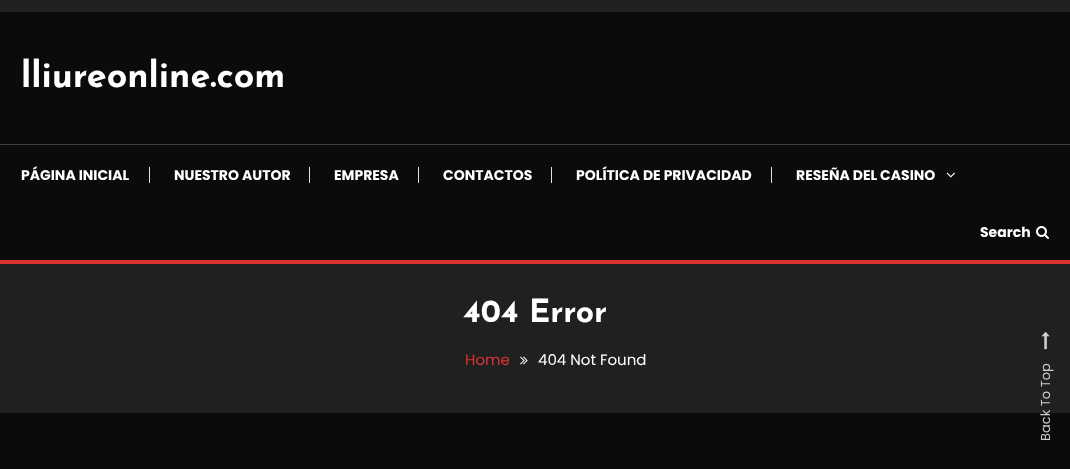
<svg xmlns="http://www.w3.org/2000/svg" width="1070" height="469">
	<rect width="100%" height="100%" fill="#0B0B0B" />
	<rect x="0" y="0" width="1070" height="12" fill="#212121" />
	<text x="21" y="87" font-family="Josefin Sans" font-size="36" font-weight="700" fill="#FFFFFF">lliureonline.com</text>
	<rect x="0" y="144" width="1070" height="1" fill="#3C3C3C" />
	<text x="21" y="180" font-family="Poppins" font-size="14" font-weight="700" fill="#FFFFFF">PÁGINA INICIAL</text>
	<rect x="149" y="167" width="1" height="16" fill="#E1E1E1" />
	<text x="174" y="180" font-family="Poppins" font-size="14" font-weight="700" fill="#FFFFFF">NUESTRO AUTOR</text>
	<rect x="309" y="167" width="1" height="16" fill="#E1E1E1" />
	<text x="334" y="180" font-family="Poppins" font-size="14" font-weight="700" fill="#FFFFFF">EMPRESA</text>
	<rect x="418" y="167" width="1" height="16" fill="#E1E1E1" />
	<text x="443" y="180" font-family="Poppins" font-size="14" font-weight="700" fill="#FFFFFF">CONTACTOS</text>
	<rect x="551" y="167" width="1" height="16" fill="#E1E1E1" />
	<text x="576" y="180" font-family="Poppins" font-size="14" font-weight="700" fill="#FFFFFF">POLÍTICA DE PRIVACIDAD</text>
	<rect x="771" y="167" width="1" height="16" fill="#E1E1E1" />
	<text x="796" y="180" font-family="Poppins" font-size="14" font-weight="700" fill="#FFFFFF">RESEÑA DEL CASINO</text>
	<image x="946" y="172" width="9" height="6" href="assets/img1.png" />
	<text x="980" y="237" font-family="Poppins" font-size="14" font-weight="700" fill="#FFFFFF">Search</text>
	<image x="1036" y="226" width="13" height="13" href="assets/img2.png" />
	<rect x="0" y="264" width="1070" height="149" fill="#202020" />
	<rect x="0" y="260" width="1070" height="4" fill="#DD3333" />
	<text x="463" y="322" font-family="Josefin Sans" font-size="32" font-weight="700" fill="#FFFFFF">404 Error</text>
	<text x="465" y="365" font-family="Poppins" font-size="15" fill="#DD3333">Home</text>
	<image x="520" y="356" width="8" height="9" href="assets/img3.png" />
	<text x="538" y="365" font-family="Poppins" font-size="15" fill="#FFFFFF">404 Not Found</text>
	<image x="1041" y="331" width="9" height="19" href="assets/img4.png" />
	<text x="1050" y="441" transform="rotate(-90 1050 441)" font-family="Poppins" font-size="13" fill="#CFCFCF">Back To Top</text>
</svg>
